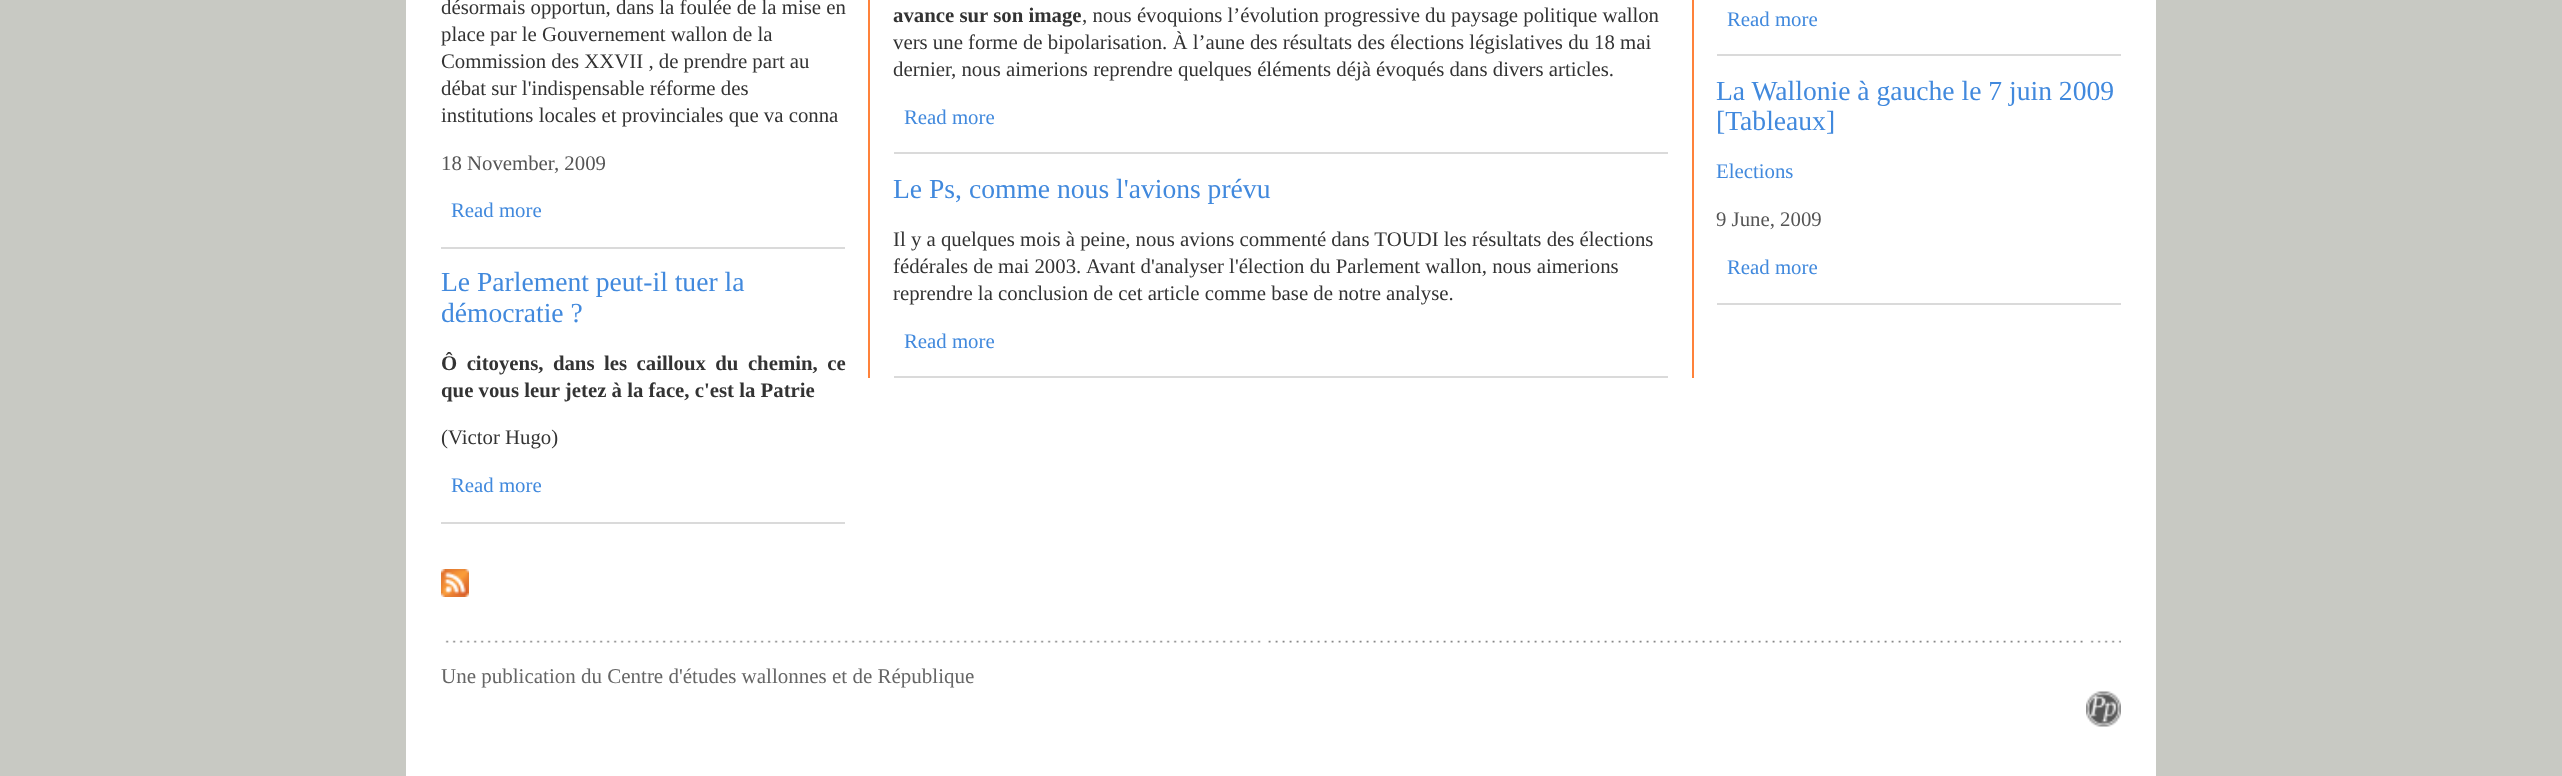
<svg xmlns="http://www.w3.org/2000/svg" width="2562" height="776">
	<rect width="100%" height="100%" fill="#C8C9C3" />
	<rect x="406" y="0" width="1750" height="776" fill="#FFFFFF" />
	<rect x="441" y="247" width="404" height="2" fill="#DADADA" />
	<g font-family="Liberation Serif" font-size="20.8" fill="#333333">
		<text x="441" y="14">désormais opportun, dans la foulée de la mise en</text>
		<text x="441" y="41">place par le Gouvernement wallon de la</text>
		<text x="441" y="68">Commission des XXVII , de prendre part au</text>
		<text x="441" y="95">débat sur l'indispensable réforme des</text>
		<text x="441" y="122">institutions locales et provinciales que va conna</text>
	</g>
	<text x="441" y="170" font-family="Liberation Serif" font-size="20.8" fill="#555555">18 November, 2009</text>
	<text x="451" y="217" font-family="Liberation Serif" font-size="20.8" fill="#4189DD">Read more</text>
	<rect x="441" y="522" width="404" height="2" fill="#DADADA" />
	<g font-family="Liberation Serif" font-size="27.6" fill="#4189DD">
		<text x="441" y="291">Le Parlement peut-il tuer la</text>
		<text x="441" y="322">démocratie ?</text>
	</g>
	<g font-family="Liberation Serif" font-size="20.8" font-weight="700" fill="#333333">
		<text x="441" y="370" word-spacing="4.25">Ô citoyens, dans les cailloux du chemin, ce</text>
		<text x="441" y="397">que vous leur jetez à la face, c'est la Patrie</text>
	</g>
	<text x="441" y="444" font-family="Liberation Serif" font-size="20.8" fill="#333333">(Victor Hugo)</text>
	<text x="451" y="492" font-family="Liberation Serif" font-size="20.8" fill="#4189DD">Read more</text>
	<rect x="1692" y="0" width="2" height="378" fill="#FF823A" />
	<rect x="868" y="0" width="2" height="378" fill="#FF823A" />
	<rect x="894" y="152" width="774" height="2" fill="#DADADA" />
	<text x="893" y="22" font-family="Liberation Serif" font-size="20.8" font-weight="700" fill="#333333">avance sur son image</text>
	<g font-family="Liberation Serif" font-size="20.8" fill="#333333">
		<text x="1082" y="22">, nous évoquions l’évolution progressive du paysage politique wallon</text>
		<text x="893" y="49">vers une forme de bipolarisation. À l’aune des résultats des élections législatives du 18 mai</text>
		<text x="893" y="76">dernier, nous aimerions reprendre quelques éléments déjà évoqués dans divers articles.</text>
	</g>
	<text x="904" y="124" font-family="Liberation Serif" font-size="20.8" fill="#4189DD">Read more</text>
	<rect x="894" y="376" width="774" height="2" fill="#DADADA" />
	<text x="893" y="198" font-family="Liberation Serif" font-size="27.6" fill="#4189DD">Le Ps, comme nous l'avions prévu</text>
	<g font-family="Liberation Serif" font-size="20.8" fill="#333333">
		<text x="893" y="246">Il y a quelques mois à peine, nous avions commenté dans TOUDI les résultats des élections</text>
		<text x="893" y="273">fédérales de mai 2003.</text>
		<text x="1086" y="273">Avant d'analyser l'élection du Parlement wallon, nous aimerions</text>
		<text x="893" y="300">reprendre la conclusion de cet article comme base de notre analyse.</text>
	</g>
	<text x="904" y="348" font-family="Liberation Serif" font-size="20.8" fill="#4189DD">Read more</text>
	<rect x="1717" y="54" width="404" height="2" fill="#DADADA" />
	<text x="1727" y="26" font-family="Liberation Serif" font-size="20.8" fill="#4189DD">Read more</text>
	<rect x="1717" y="303" width="404" height="2" fill="#DADADA" />
	<g font-family="Liberation Serif" font-size="27.6" fill="#4189DD">
		<text x="1716" y="100">La Wallonie à gauche le 7 juin 2009</text>
		<text x="1716" y="130">[Tableaux]</text>
	</g>
	<text x="1716" y="178" font-family="Liberation Serif" font-size="20.8" fill="#4189DD">Elections</text>
	<text x="1716" y="226" font-family="Liberation Serif" font-size="20.8" fill="#555555">9 June, 2009</text>
	<text x="1727" y="274" font-family="Liberation Serif" font-size="20.8" fill="#4189DD">Read more</text>
	<image x="441" y="569" width="28" height="28" href="assets/img1.png" />
	<image x="445" y="640" width="1676" height="3" href="assets/img2.png" />
	<text x="441" y="683" font-family="Liberation Serif" font-size="21" fill="#666666">Une publication du Centre d'études wallonnes et de République</text>
	<image x="2086" y="691" width="35" height="36" href="assets/img3.png" />
</svg>
